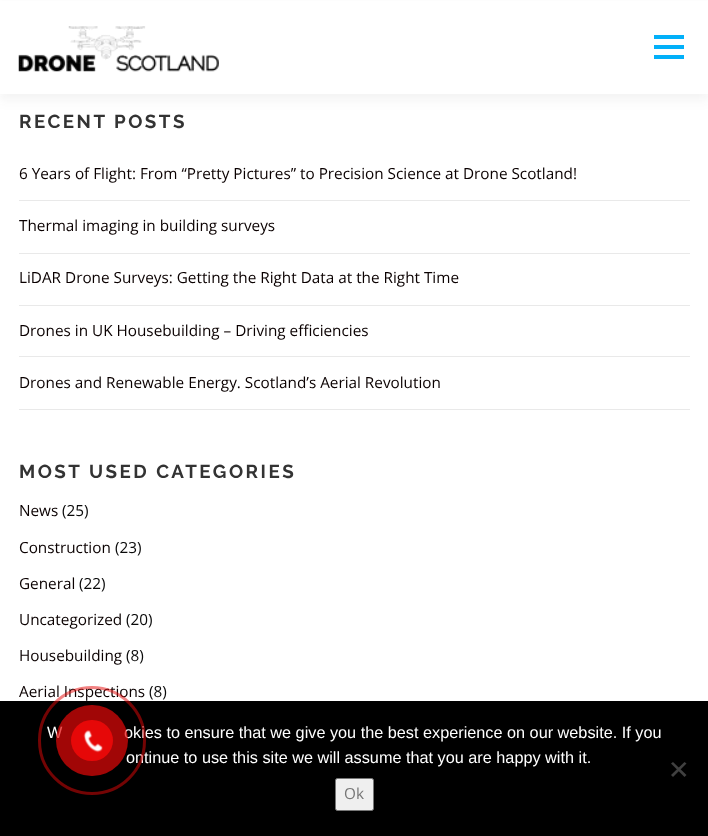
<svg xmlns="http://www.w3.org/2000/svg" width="708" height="836">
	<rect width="100%" height="100%" fill="#FFFFFF" />
	<rect x="0" y="6" width="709" height="94" fill="#323232" fill-opacity="0.06" filter="blur(6px)" />
	<rect x="0" y="1" width="708" height="93" fill="#FFFFFF" />
	<image x="18" y="26" width="201" height="46" href="assets/img1.png" />
	<rect x="654" y="45" width="30" height="4" fill="#02B0F9" />
	<rect x="654" y="35" width="30" height="4" fill="#02B0F9" />
	<rect x="654" y="55" width="30" height="4" fill="#02B0F9" />
	<text x="19" y="128" font-family="Raleway" font-size="18.75" font-weight="700" letter-spacing="2.5" fill="#333333">RECENT POSTS</text>
	<rect x="19" y="200" width="671" height="1" fill="#E9E9E9" />
	<text x="19" y="179" font-family="Open Sans" font-size="15.3" fill="#0A0000">6 Years of Flight: From “Pretty Pictures” to Precision Science at Drone Scotland!</text>
	<rect x="19" y="253" width="671" height="1" fill="#E9E9E9" />
	<text x="19" y="231" font-family="Open Sans" font-size="15.3" fill="#0A0000">Thermal imaging in building surveys</text>
	<rect x="19" y="305" width="671" height="1" fill="#E9E9E9" />
	<text x="19" y="283" font-family="Open Sans" font-size="15.3" fill="#0A0000">LiDAR Drone Surveys: Getting the Right Data at the Right Time</text>
	<rect x="19" y="356" width="671" height="1" fill="#E9E9E9" />
	<text x="19" y="336" font-family="Open Sans" font-size="15.3" fill="#0A0000">Drones in UK Housebuilding – Driving efficiencies</text>
	<rect x="19" y="409" width="671" height="1" fill="#E9E9E9" />
	<text x="19" y="388" font-family="Open Sans" font-size="15.3" fill="#0A0000">Drones and Renewable Energy. Scotland’s Aerial Revolution</text>
	<text x="19" y="478" font-family="Raleway" font-size="18.75" font-weight="700" letter-spacing="2.5" fill="#333333">MOST USED CATEGORIES</text>
	<text x="19" y="516" font-family="Open Sans" font-size="15.3" fill="#0A0000">News</text>
	<text x="62" y="516" font-family="Open Sans" font-size="15.3" fill="#0A0A0A">(25)</text>
	<text x="19" y="553" font-family="Open Sans" font-size="15.3" fill="#0A0000">Construction</text>
	<text x="115" y="553" font-family="Open Sans" font-size="15.3" fill="#0A0A0A">(23)</text>
	<text x="19" y="589" font-family="Open Sans" font-size="15.3" fill="#0A0000">General</text>
	<text x="79" y="589" font-family="Open Sans" font-size="15.3" fill="#0A0A0A">(22)</text>
	<text x="19" y="625" font-family="Open Sans" font-size="15.3" fill="#0A0000">Uncategorized</text>
	<text x="126" y="625" font-family="Open Sans" font-size="15.3" fill="#0A0A0A">(20)</text>
	<text x="19" y="661" font-family="Open Sans" font-size="15.3" fill="#0A0000">Housebuilding</text>
	<text x="126" y="661" font-family="Open Sans" font-size="15.3" fill="#0A0A0A">(8)</text>
	<text x="19" y="697" font-family="Open Sans" font-size="15.3" fill="#0A0000">Aerial Inspections</text>
	<text x="149" y="697" font-family="Open Sans" font-size="15.3" fill="#0A0A0A">(8)</text>
	<rect x="0" y="701" width="708" height="135" fill="#000000" />
	<g font-family="Liberation Sans" font-size="16.25" fill="#FFFFFF">
		<text x="124" y="738">okies to ensure that we give you the best experience on our website. If you</text>
		<text x="126" y="763">ontinue to use this site we will assume that you are happy with it.</text>
	</g>
	<rect x="39.5" y="687.5" width="105" height="106" rx="52.5" fill="none" stroke="#E60808" stroke-opacity="0.5" stroke-width="3" />
	<text x="47" y="738" font-family="Liberation Sans" font-size="16.25" fill="#FFFFFF">W</text>
	<rect x="56" y="705" width="72" height="71" rx="35.5" fill="#E60808" fill-opacity="0.7" />
	<rect x="71" y="720" width="42" height="41" rx="20.5" fill="#E60808" />
	<image x="83" y="730" width="20" height="23" href="assets/img2.png" />
	<path d="M684.5 762L686.5 763.5L673 777L671 775Z" fill="#404040" />
	<path d="M671 763.5L673 762L686.5 775L684.5 777Z" fill="#404040" />
	<rect x="335.5" y="778.5" width="38" height="32" rx="2" fill="#EFEFEF" stroke="#767676" />
	<text x="344" y="799" font-family="Open Sans" font-size="15.3" fill="#777777">Ok</text>
</svg>
